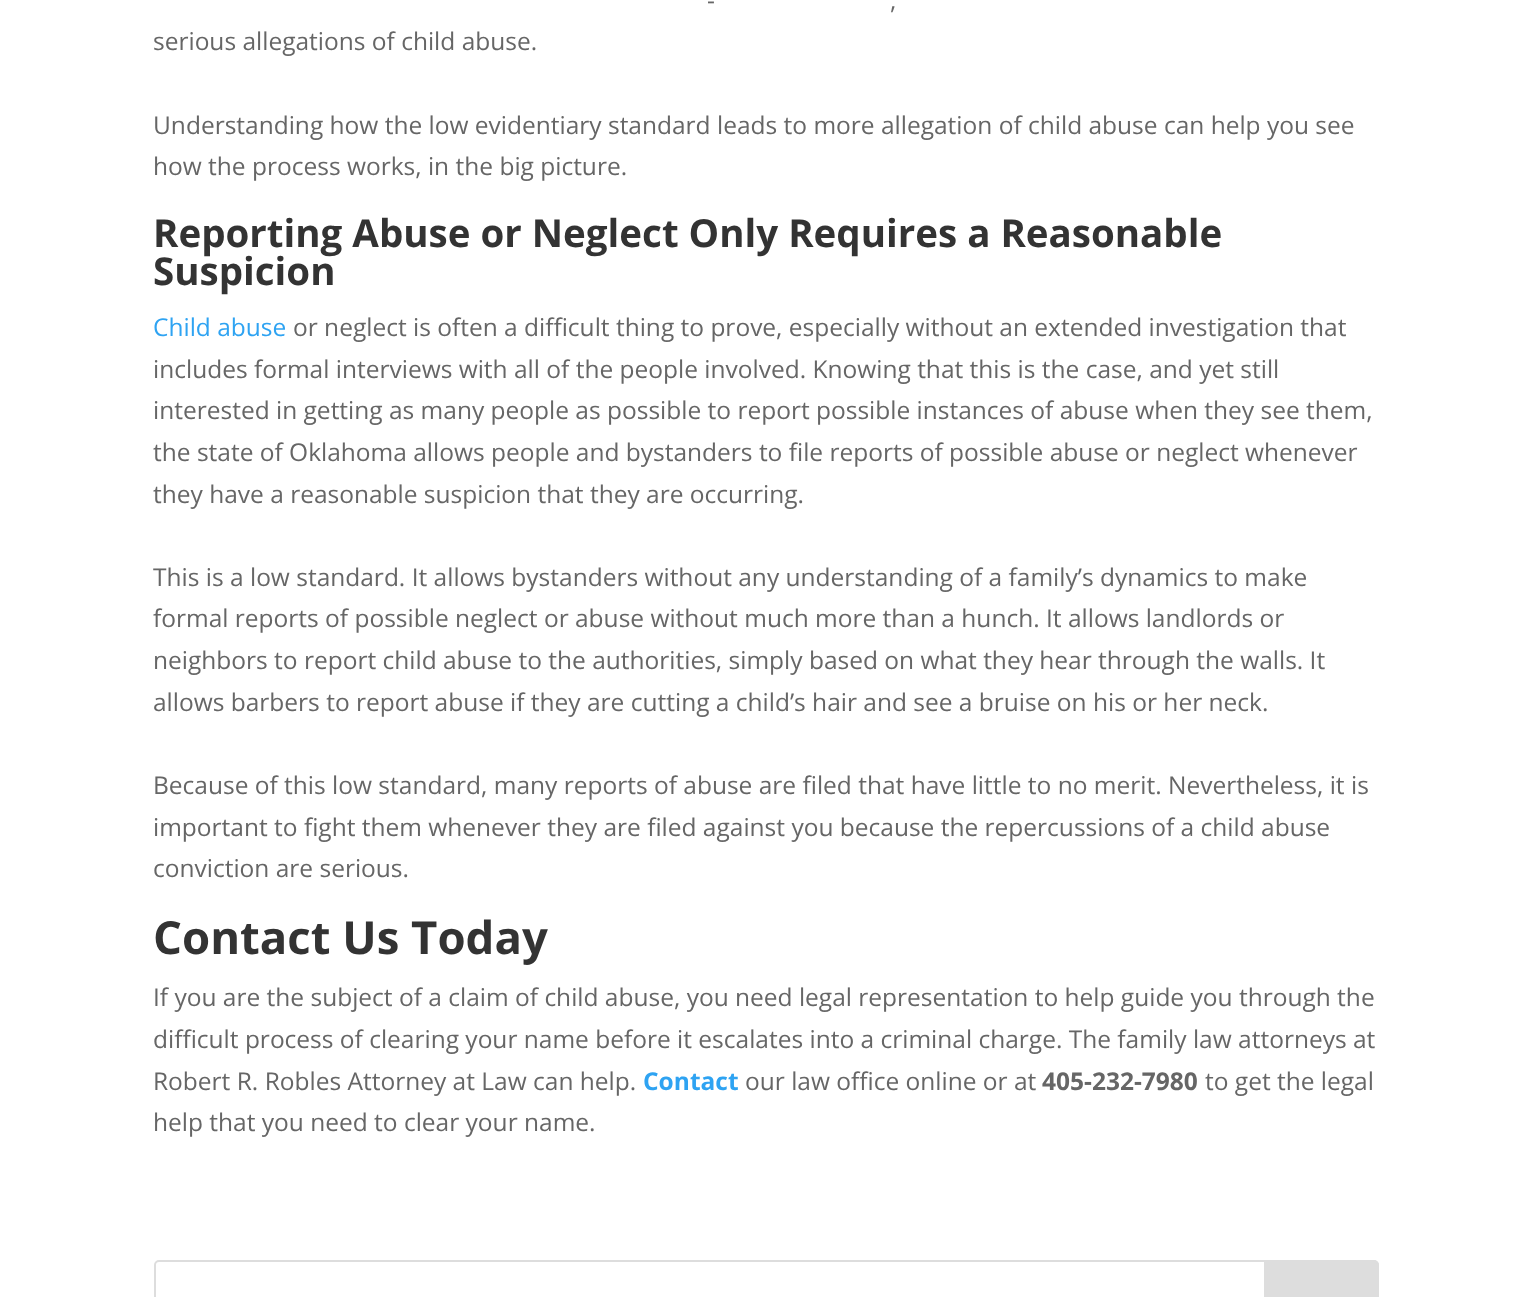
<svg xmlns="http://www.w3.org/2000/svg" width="1530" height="1297">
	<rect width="100%" height="100%" fill="#FFFFFF" />
	<g font-family="Open Sans" font-size="24.5" fill="#666666">
		<text x="707" y="9">-</text>
		<text x="890" y="9">,</text>
		<text x="153" y="50">serious allegations of child abuse.</text>
		<text x="153" y="134">Understanding how the low evidentiary standard leads to more allegation of child abuse can help you see</text>
		<text x="153" y="175">how the process works, in the big picture.</text>
	</g>
	<g font-family="Open Sans" font-size="38.5" font-weight="700" fill="#333333">
		<text x="153" y="247">Reporting Abuse or Neglect Only Requires a Reasonable</text>
		<text x="153" y="285">Suspicion</text>
	</g>
	<text x="153" y="336" font-family="Open Sans" font-size="24.5" fill="#2EA3F2">Child abuse</text>
	<g font-family="Open Sans" font-size="24.5" fill="#666666">
		<text x="293" y="336">or neglect is often a difficult thing to prove, especially without an extended investigation that</text>
		<text x="153" y="378">includes formal interviews with all of the people involved. Knowing that this is the case, and yet still</text>
		<text x="153" y="419">interested in getting as many people as possible to report possible instances of abuse when they see them,</text>
		<text x="153" y="461">the state of Oklahoma allows people and bystanders to file reports of possible abuse or neglect whenever</text>
		<text x="153" y="503">they have a reasonable suspicion that they are occurring.</text>
		<text x="153" y="586">This is a low standard. It allows bystanders without any understanding of a family’s dynamics to make</text>
		<text x="153" y="627">formal reports of possible neglect or abuse without much more than a hunch. It allows landlords or</text>
		<text x="153" y="669">neighbors to report child abuse to the authorities, simply based on what they hear through the walls. It</text>
		<text x="153" y="711">allows barbers to report abuse if they are cutting a child’s hair and see a bruise on his or her neck.</text>
		<text x="153" y="794">Because of this low standard, many reports of abuse are filed that have little to no merit. Nevertheless, it is</text>
		<text x="153" y="836">important to fight them whenever they are filed against you because the repercussions of a child abuse</text>
		<text x="153" y="877">conviction are serious.</text>
	</g>
	<text x="153" y="954" font-family="Open Sans" font-size="45.5" font-weight="700" fill="#333333">Contact Us Today</text>
	<g font-family="Open Sans" font-size="24.5" fill="#666666">
		<text x="153" y="1006">If you are the subject of a claim of child abuse, you need legal representation to help guide you through the</text>
		<text x="153" y="1048">difficult process of clearing your name before it escalates into a criminal charge. The family law attorneys at</text>
		<text x="153" y="1090">Robert R. Robles Attorney at Law can help.</text>
	</g>
	<text x="643" y="1090" font-family="Open Sans" font-size="24.5" font-weight="700" fill="#2EA3F2">Contact</text>
	<text x="745" y="1090" font-family="Open Sans" font-size="24.5" fill="#666666">our law office online or at</text>
	<text x="1042" y="1090" font-family="Open Sans" font-size="24.5" font-weight="700" fill="#666666">405-232-7980</text>
	<g font-family="Open Sans" font-size="24.5" fill="#666666">
		<text x="1205" y="1090">to get the legal</text>
		<text x="153" y="1131">help that you need to clear your name.</text>
	</g>
	<rect x="155" y="1261" width="1223" height="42" rx="4" fill="none" stroke="#DDDDDD" stroke-width="2" />
	<path d="M1265 1261H1374C1376 1261 1378 1263 1378 1265V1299C1378 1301 1376 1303 1374 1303H1265Z" fill="#DDDDDD" stroke="#DDDDDD" stroke-width="2" />
</svg>
